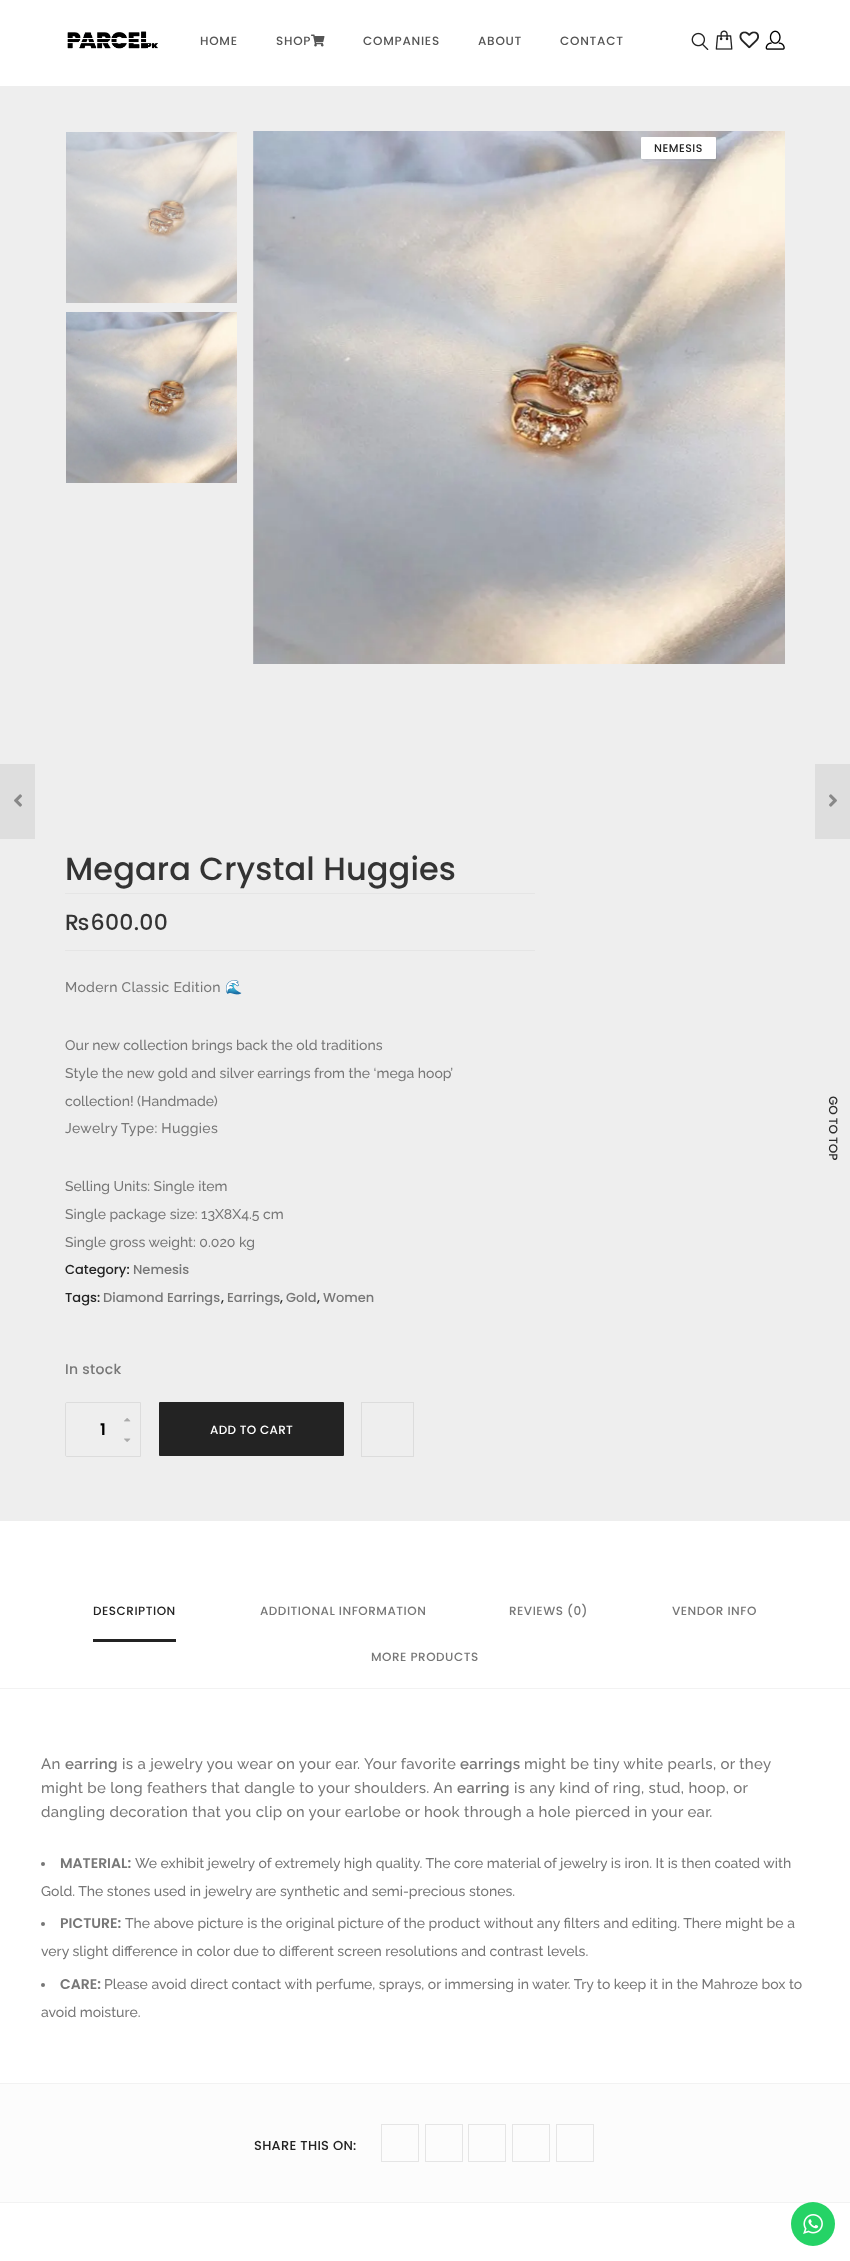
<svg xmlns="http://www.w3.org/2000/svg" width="850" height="2261">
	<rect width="100%" height="100%" fill="#FFFFFF" />
	<image x="67" y="31" width="91" height="18" href="assets/img1.png" />
	<g font-family="Poppins" font-size="12" font-weight="500" letter-spacing="0.75" fill="#555555">
		<text x="200" y="45">HOME</text>
		<text x="276" y="45">SHOP</text>
	</g>
	<image x="311" y="34" width="14" height="13" href="assets/img2.png" />
	<g font-family="Poppins" font-size="12" font-weight="500" letter-spacing="0.75" fill="#555555">
		<text x="363" y="45">COMPANIES</text>
		<text x="478" y="45">ABOUT</text>
		<text x="560" y="45">CONTACT</text>
	</g>
	<image x="691" y="32" width="18" height="18" href="assets/img3.png" />
	<image x="715" y="30" width="18" height="20" href="assets/img4.png" />
	<image x="739" y="31" width="20" height="18" href="assets/img5.png" />
	<image x="765" y="30" width="20" height="20" href="assets/img6.png" />
	<rect x="0" y="86" width="850" height="1435" fill="#EEEEEE" />
	<image x="66" y="132" width="171" height="171" href="assets/img7.png" />
	<image x="66" y="312" width="171" height="171" href="assets/img8.png" />
	<image x="253" y="131" width="532" height="533" href="assets/img9.png" />
	<path d="M642 159C642 165 652 161 655 161H704C715 161 717 165 717 157C717 154 718 139 716 139V158C716 159 716 159 715 159Z" fill="#000000" fill-opacity="0.05" />
	<rect x="641" y="137" width="75" height="22" rx="1" fill="#FFFFFF" />
	<text x="654" y="152" font-family="Poppins" font-size="11" font-weight="500" letter-spacing="0.5" fill="#232323">NEMESIS</text>
	<text x="65" y="880" font-family="Poppins" font-size="32" font-weight="500" letter-spacing="0.1" fill="#333333">Megara Crystal Huggies</text>
	<rect x="65" y="893" width="470" height="1" fill="#E5E5E5" />
	<rect x="65" y="950" width="470" height="1" fill="#E5E5E5" />
	<text x="65" y="930" font-family="Poppins" font-size="22" font-weight="500" letter-spacing="0.3" fill="#333333">₨600.00</text>
	<text x="65" y="992" font-family="Raleway" font-size="14" font-weight="500" letter-spacing="0.3" fill="#777777">Modern Classic Edition</text>
	<text x="225" y="992" font-family="Noto Color Emoji" font-size="14" letter-spacing="0.3" fill="#777777">🌊</text>
	<g font-family="Raleway" font-size="14" font-weight="500" fill="#777777">
		<text x="65" y="1050">Our new collection brings back the old traditions</text>
		<text x="65" y="1078">Style the new gold and silver earrings from the ‘mega hoop’</text>
		<text x="65" y="1106">collection! (Handmade)</text>
	</g>
	<text x="65" y="1133" font-family="Raleway" font-size="14" font-weight="500" letter-spacing="0.3" fill="#777777">Jewelry Type: Huggies</text>
	<g font-family="Raleway" font-size="14" font-weight="500" fill="#777777">
		<text x="65" y="1191">Selling Units: Single item</text>
		<text x="65" y="1219">Single package size: 13X8X4.5 cm</text>
		<text x="65" y="1247">Single gross weight: 0.020 kg</text>
	</g>
	<text x="65" y="1274" font-family="Poppins" font-size="13" font-weight="500" fill="#232323">Category:</text>
	<text x="133" y="1274" font-family="Poppins" font-size="13" font-weight="500" fill="#777777">Nemesis</text>
	<text x="65" y="1302" font-family="Poppins" font-size="13" font-weight="500" fill="#232323">Tags:</text>
	<text x="103" y="1302" font-family="Poppins" font-size="13" font-weight="500" fill="#777777">Diamond Earrings</text>
	<text x="221" y="1302" font-family="Poppins" font-size="13" font-weight="500" fill="#232323">,</text>
	<text x="227" y="1302" font-family="Poppins" font-size="13" font-weight="500" fill="#777777">Earrings</text>
	<text x="280" y="1302" font-family="Poppins" font-size="13" font-weight="500" fill="#232323">,</text>
	<text x="286" y="1302" font-family="Poppins" font-size="13" font-weight="500" fill="#777777">Gold</text>
	<text x="317" y="1302" font-family="Poppins" font-size="13" font-weight="500" fill="#232323">,</text>
	<text x="323" y="1302" font-family="Poppins" font-size="13" font-weight="500" fill="#777777">Women</text>
	<text x="65" y="1374" font-family="Poppins" font-size="14" font-weight="500" letter-spacing="0.3" fill="#777777">In stock</text>
	<path d="M67 1402.5H140.5V1456.5H67C66 1456.5 65.5 1456 65.5 1455V1404C65.5 1403 66 1402.5 67 1402.5Z" fill="none" stroke="#DCDCDC" />
	<image x="124" y="1418" width="7" height="4" href="assets/img10.png" />
	<text x="100" y="1435" font-family="Poppins" font-size="16" font-weight="600" fill="#000000">1</text>
	<image x="124" y="1438" width="7" height="4" href="assets/img11.png" />
	<rect x="159" y="1402" width="185" height="54" rx="1" fill="#232323" />
	<text x="210" y="1434" font-family="Poppins" font-size="12" font-weight="500" letter-spacing="0.3" fill="#FFFFFF">ADD TO CART</text>
	<rect x="361.5" y="1402.5" width="52" height="54" fill="none" stroke="#DCDCDC" />
	<rect x="0" y="764" width="35" height="75" fill="#DEDEDE" />
	<image x="14" y="794" width="8" height="13" href="assets/img12.png" />
	<rect x="815" y="764" width="35" height="75" fill="#DEDEDE" />
	<image x="829" y="794" width="8" height="13" href="assets/img13.png" />
	<rect x="0" y="1688" width="850" height="1" fill="#F2F2F2" />
	<rect x="93" y="1639" width="83" height="3" fill="#232323" />
	<text x="93" y="1615" font-family="Poppins" font-size="12" font-weight="500" letter-spacing="0.5" fill="#232323">DESCRIPTION</text>
	<g font-family="Poppins" font-size="12" font-weight="500" letter-spacing="0.5" fill="#777777">
		<text x="260" y="1615">ADDITIONAL INFORMATION</text>
		<text x="509" y="1615">REVIEWS (0)</text>
		<text x="672" y="1615">VENDOR INFO</text>
		<text x="371" y="1661">MORE PRODUCTS</text>
	</g>
	<text x="41" y="1769" font-family="Raleway" font-size="15" font-weight="500" letter-spacing="0.3" fill="#777777">An</text>
	<text x="65" y="1769" font-family="Raleway" font-size="15" font-weight="600" letter-spacing="0.3" fill="#777777">earring</text>
	<text x="122" y="1769" font-family="Raleway" font-size="15" font-weight="500" letter-spacing="0.3" fill="#777777">is a jewelry you wear on your ear. Your favorite</text>
	<text x="460" y="1769" font-family="Raleway" font-size="15" font-weight="600" letter-spacing="0.3" fill="#777777">earrings</text>
	<g font-family="Raleway" font-size="15" font-weight="500" letter-spacing="0.3" fill="#777777">
		<text x="524" y="1769">might be tiny white pearls, or they</text>
		<text x="41" y="1793">might be long feathers that dangle to your shoulders. An</text>
	</g>
	<text x="457" y="1793" font-family="Raleway" font-size="15" font-weight="600" letter-spacing="0.3" fill="#777777">earring</text>
	<g font-family="Raleway" font-size="15" font-weight="500" letter-spacing="0.3" fill="#777777">
		<text x="514" y="1793">is any kind of ring, stud, hoop, or</text>
		<text x="41" y="1817">dangling decoration that you clip on your earlobe or hook through a hole pierced in your ear.</text>
	</g>
	<circle cx="43" cy="1864" r="2" fill="#777777" />
	<text x="60" y="1868" font-family="Poppins" font-size="14" font-weight="600" fill="#777777">MATERIAL:</text>
	<g font-family="Raleway" font-size="14" font-weight="500" fill="#777777">
		<text x="135" y="1868">We exhibit jewelry of extremely high quality. The core material of jewelry is iron. It is then coated with</text>
		<text x="41" y="1896">Gold. The stones used in jewelry are synthetic and semi-precious stones.</text>
	</g>
	<circle cx="43" cy="1924" r="2" fill="#777777" />
	<text x="60" y="1928" font-family="Poppins" font-size="14" font-weight="600" fill="#777777">PICTURE:</text>
	<g font-family="Raleway" font-size="14" font-weight="500" fill="#777777">
		<text x="125" y="1928">The above picture is the original picture of the product without any filters and editing. There might be a</text>
		<text x="41" y="1956">very slight difference in color due to different screen resolutions and contrast levels.</text>
	</g>
	<circle cx="43" cy="1985" r="2" fill="#777777" />
	<text x="60" y="1989" font-family="Poppins" font-size="14" font-weight="600" fill="#777777">CARE:</text>
	<g font-family="Raleway" font-size="14" font-weight="500" fill="#777777">
		<text x="104" y="1989">Please avoid direct contact with perfume, sprays, or immersing in water. Try to keep it in the Mahroze box to</text>
		<text x="41" y="2017">avoid moisture.</text>
	</g>
	<rect x="0" y="2084" width="850" height="118" fill="#FCFCFC" />
	<rect x="0" y="2083" width="850" height="1" fill="#F2F2F2" />
	<rect x="0" y="2202" width="850" height="1" fill="#F2F2F2" />
	<text x="254" y="2150" font-family="Poppins" font-size="13" font-weight="500" letter-spacing="0.3" fill="#232323">SHARE THIS ON:</text>
	<rect x="381.5" y="2124.5" width="37" height="37" fill="none" stroke="#E5E5E5" />
	<rect x="425.5" y="2124.5" width="37" height="37" fill="none" stroke="#E5E5E5" />
	<rect x="468.5" y="2124.5" width="37" height="37" fill="none" stroke="#E5E5E5" />
	<rect x="512.5" y="2124.5" width="37" height="37" fill="none" stroke="#E5E5E5" />
	<rect x="556.5" y="2124.5" width="37" height="37" fill="none" stroke="#E5E5E5" />
	<text x="829" y="1096" transform="rotate(90 829 1096)" font-family="Poppins" font-size="12" font-weight="500" fill="#2B2B2B">GO TO TOP</text>
	<circle cx="813" cy="2224" r="22" fill="#25D366" />
	<image x="803" y="2214" width="20" height="20" href="assets/img14.png" />
</svg>
